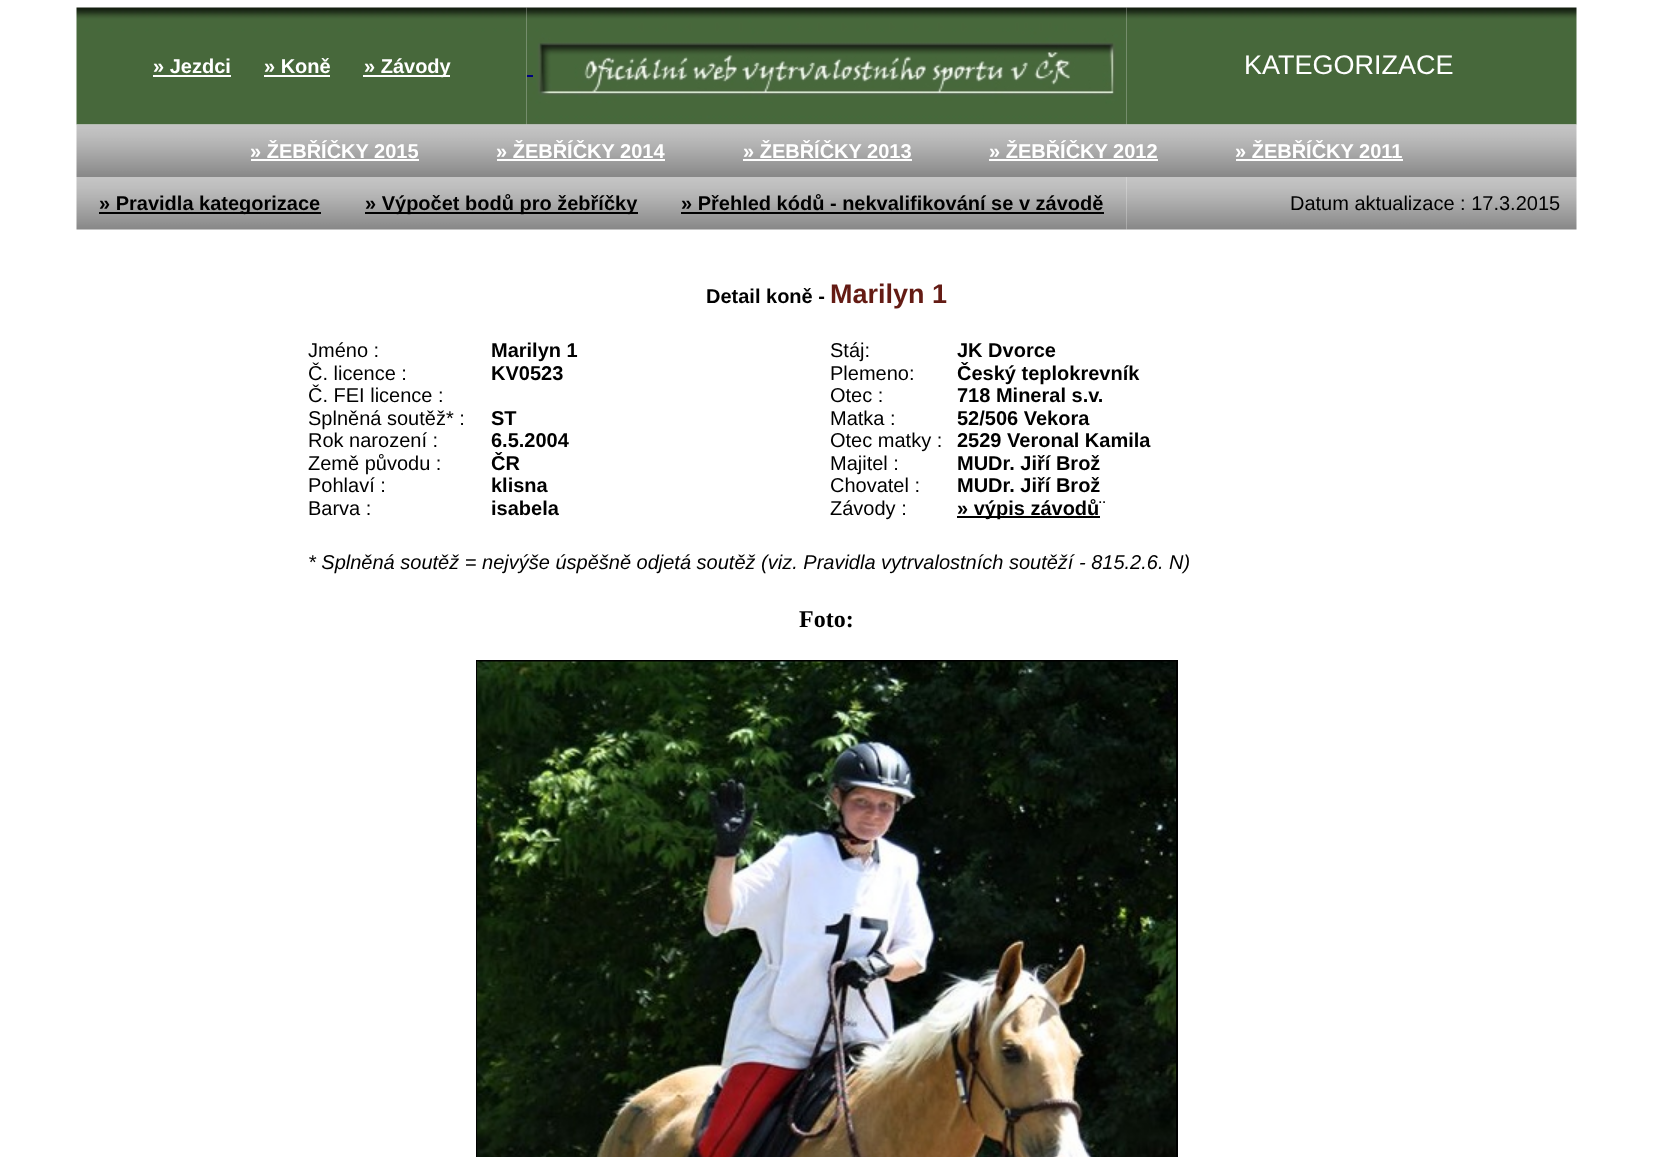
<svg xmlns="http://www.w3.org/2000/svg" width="1653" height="1157">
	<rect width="100%" height="100%" fill="#FFFFFF" />
	<image x="76" y="7" width="451" height="118" href="assets/img1.png" />
	<text x="153" y="73" font-family="Liberation Sans" font-size="20" font-weight="700" fill="#FFFFFF">» Jezdci</text>
	<rect x="153" y="75" width="78" height="2" fill="#FFFFFF" />
	<text x="264" y="73" font-family="Liberation Sans" font-size="20" font-weight="700" fill="#FFFFFF">» Koně</text>
	<rect x="264" y="75" width="66" height="2" fill="#FFFFFF" />
	<rect x="363" y="75" width="87" height="2" fill="#FFFFFF" />
	<text x="364" y="73" font-family="Liberation Sans" font-size="20" font-weight="700" fill="#FFFFFF">» Závody</text>
	<image x="526" y="7" width="601" height="118" href="assets/img2.png" />
	<rect x="527" y="75" width="6" height="2" fill="#000080" />
	<image x="1126" y="7" width="451" height="118" href="assets/img3.png" />
	<text x="1244" y="74" font-family="Liberation Sans" font-size="27" fill="#FFFFFF">KATEGORIZACE</text>
	<image x="76" y="124" width="1501" height="53" href="assets/img4.png" />
	<text x="250" y="158" font-family="Liberation Sans" font-size="20" font-weight="700" fill="#FFFFFF">» ŽEBŘÍČKY 2015</text>
	<rect x="251" y="159" width="168" height="2" fill="#FFFFFF" />
	<text x="496" y="158" font-family="Liberation Sans" font-size="20" font-weight="700" fill="#FFFFFF">» ŽEBŘÍČKY 2014</text>
	<rect x="497" y="159" width="168" height="2" fill="#FFFFFF" />
	<text x="743" y="158" font-family="Liberation Sans" font-size="20" font-weight="700" fill="#FFFFFF">» ŽEBŘÍČKY 2013</text>
	<rect x="743" y="159" width="169" height="2" fill="#FFFFFF" />
	<text x="989" y="158" font-family="Liberation Sans" font-size="20" font-weight="700" fill="#FFFFFF">» ŽEBŘÍČKY 2012</text>
	<rect x="989" y="159" width="169" height="2" fill="#FFFFFF" />
	<text x="1235" y="158" font-family="Liberation Sans" font-size="20" font-weight="700" fill="#FFFFFF">» ŽEBŘÍČKY 2011</text>
	<rect x="1236" y="159" width="167" height="2" fill="#FFFFFF" />
	<image x="76" y="177" width="1051" height="53" href="assets/img5.png" />
	<rect x="99" y="212" width="222" height="2" fill="#000000" />
	<text x="99" y="210" font-family="Liberation Sans" font-size="20" font-weight="700" fill="#000000">» Pravidla kategorizace</text>
	<rect x="365" y="212" width="273" height="2" fill="#000000" />
	<g font-family="Liberation Sans" font-size="20" font-weight="700" fill="#000000">
		<text x="365" y="210">» Výpočet bodů pro žebříčky</text>
		<text x="681" y="210">» Přehled kódů - nekvalifikování se v závodě</text>
	</g>
	<rect x="681" y="212" width="423" height="2" fill="#000000" />
	<image x="1126" y="177" width="451" height="53" href="assets/img6.png" />
	<text x="1290" y="210" font-family="Liberation Sans" font-size="20" fill="#000000">Datum aktualizace : 17.3.2015</text>
	<text x="706" y="303" font-family="Liberation Sans" font-size="20" font-weight="700" fill="#000000">Detail koně -</text>
	<text x="830" y="303" font-family="Liberation Sans" font-size="27" font-weight="700" fill="#641B14">Marilyn 1</text>
	<g font-family="Liberation Sans" font-size="20" fill="#000000">
		<text x="308" y="357">Jméno :</text>
		<text x="308" y="380">Č. licence :</text>
		<text x="308" y="402">Č. FEI licence :</text>
		<text x="308" y="425">Splněná soutěž* :</text>
		<text x="308" y="447">Rok narození :</text>
		<text x="308" y="470">Země původu :</text>
		<text x="308" y="492">Pohlaví :</text>
		<text x="308" y="515">Barva :</text>
	</g>
	<g font-family="Liberation Sans" font-size="20" font-weight="700" fill="#000000">
		<text x="491" y="357">Marilyn 1</text>
		<text x="491" y="380">KV0523</text>
		<text x="491" y="425">ST</text>
		<text x="491" y="447">6.5.2004</text>
		<text x="491" y="470">ČR</text>
		<text x="491" y="492">klisna</text>
		<text x="491" y="515">isabela</text>
	</g>
	<g font-family="Liberation Sans" font-size="20" fill="#000000">
		<text x="830" y="357">Stáj:</text>
		<text x="830" y="380">Plemeno:</text>
		<text x="830" y="402">Otec :</text>
		<text x="830" y="425">Matka :</text>
		<text x="830" y="447">Otec matky :</text>
		<text x="830" y="470">Majitel :</text>
		<text x="830" y="492">Chovatel :</text>
		<text x="830" y="515">Závody :</text>
	</g>
	<g font-family="Liberation Sans" font-size="20" font-weight="700" fill="#000000">
		<text x="957" y="357">JK Dvorce</text>
		<text x="957" y="380">Český teplokrevník</text>
		<text x="957" y="402">718 Mineral s.v.</text>
		<text x="957" y="425">52/506 Vekora</text>
		<text x="957" y="447">2529 Veronal Kamila</text>
		<text x="957" y="470">MUDr. Jiří Brož</text>
		<text x="957" y="492">MUDr. Jiří Brož</text>
	</g>
	<rect x="957" y="516" width="143" height="2" fill="#000000" />
	<text x="957" y="515" font-family="Liberation Sans" font-size="20" font-weight="700" fill="#000000">» výpis závodů</text>
	<text x="1099" y="515" font-family="Liberation Sans" font-size="20" fill="#000000">¨</text>
	<text x="308" y="569" font-family="Liberation Sans" font-size="20" font-style="italic" fill="#000000">* Splněná soutěž = nejvýše úspěšně odjetá soutěž (viz. Pravidla vytrvalostních soutěží - 815.2.6. N)</text>
	<text x="799" y="627" font-family="Liberation Serif" font-size="24" font-weight="700" fill="#000000">Foto:</text>
	<rect x="477" y="661" width="700" height="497" fill="none" stroke="#000000" stroke-width="2" />
	<image x="477" y="661" width="699" height="496" href="assets/img7.png" />
</svg>
